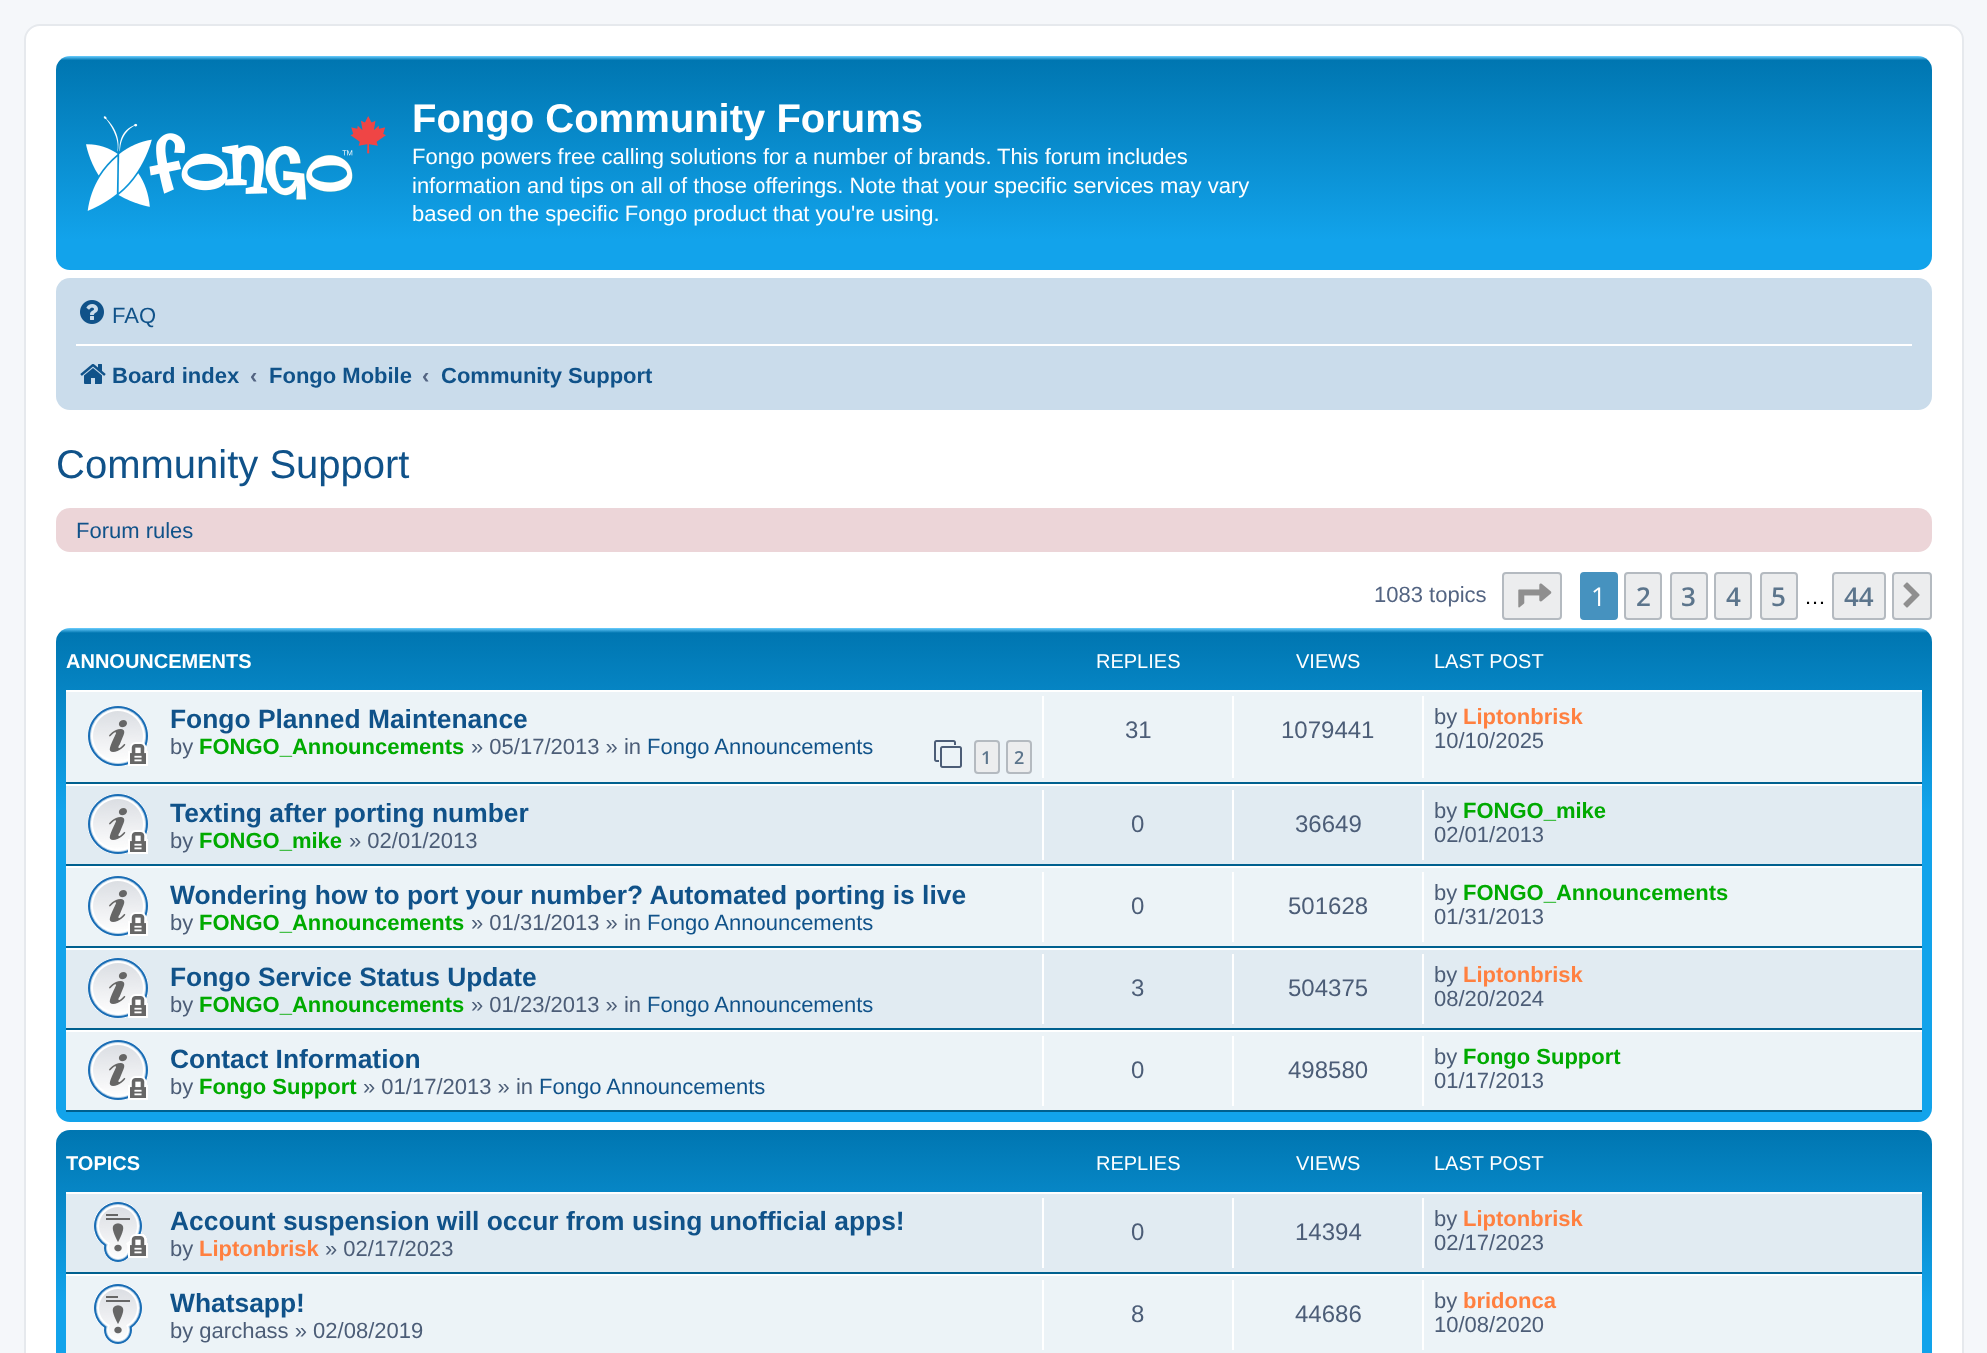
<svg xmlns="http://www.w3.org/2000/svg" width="1987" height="1353">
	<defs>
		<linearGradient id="g1" gradientUnits="userSpaceOnUse" x1="994" y1="56" x2="994" y2="270"><stop offset="0" stop-color="#6ACEFF" /><stop offset="0.02" stop-color="#0076B1" /><stop offset="0.86" stop-color="#12A3EB" /><stop offset="1" stop-color="#12A3EB" /></linearGradient>
		<linearGradient id="g2" gradientUnits="userSpaceOnUse" x1="994" y1="628" x2="994" y2="1122"><stop offset="0" stop-color="#6ACEFF" /><stop offset="0.01" stop-color="#0076B1" /><stop offset="0.37" stop-color="#12A3EB" /><stop offset="1" stop-color="#12A3EB" /></linearGradient>
		<linearGradient id="g3" gradientUnits="userSpaceOnUse" x1="994" y1="1130" x2="994" y2="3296"><stop offset="0" stop-color="#6ACEFF" /><stop offset="0" stop-color="#0076B1" /><stop offset="0.08" stop-color="#12A3EB" /><stop offset="1" stop-color="#12A3EB" /></linearGradient>
	</defs>
	<rect width="100%" height="100%" fill="#F5F7FA" />
	<rect x="25" y="25" width="1938" height="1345" rx="15" fill="#FFFFFF" stroke="#E6E9ED" stroke-width="2" />
	<rect x="56" y="56" width="1876" height="214" rx="14" fill="url(#g1)" />
	<image x="86" y="116" width="300" height="95" href="assets/img1.png" />
	<text x="412" y="132" font-family="Liberation Sans" font-size="40" font-weight="700" fill="#FFFFFF">Fongo Community Forums</text>
	<g font-family="Liberation Sans" font-size="22" fill="#FFFFFF">
		<text x="412" y="164">Fongo powers free calling solutions for a number of brands.</text>
		<text x="997" y="164">This forum includes</text>
		<text x="412" y="193">information and tips on all of those offerings. Note that your specific services may vary</text>
		<text x="412" y="221">based on the specific Fongo product that you're using.</text>
	</g>
	<rect x="56" y="278" width="1876" height="132" rx="14" fill="#CADCEB" />
	<image x="80" y="300" width="24" height="24" href="assets/img2.png" />
	<text x="112" y="323" font-family="Liberation Sans" font-size="22" fill="#105289">FAQ</text>
	<rect x="76" y="344" width="1836" height="2" fill="#FFFFFF" />
	<image x="80" y="364" width="26" height="20" href="assets/img3.png" />
	<text x="112" y="383" font-family="Liberation Sans" font-size="22" font-weight="700" fill="#105289">Board index</text>
	<text x="250" y="383" font-family="Liberation Sans" font-size="22" font-weight="700" fill="#536482">‹</text>
	<text x="269" y="383" font-family="Liberation Sans" font-size="22" font-weight="700" fill="#105289">Fongo Mobile</text>
	<text x="422" y="383" font-family="Liberation Sans" font-size="22" font-weight="700" fill="#536482">‹</text>
	<text x="441" y="383" font-family="Liberation Sans" font-size="22" font-weight="700" fill="#105289">Community Support</text>
	<text x="56" y="478" font-family="Liberation Sans" font-size="40" fill="#105289">Community Support</text>
	<rect x="56" y="508" width="1876" height="44" rx="14" fill="#ECD5D8" />
	<text x="76" y="538" font-family="Liberation Sans" font-size="22" fill="#105289">Forum rules</text>
	<text x="1374" y="602" font-family="Liberation Sans" font-size="22" fill="#536482">1083 topics</text>
	<rect x="1503" y="573" width="58" height="46" rx="3" fill="#ECEDEE" stroke="#B4BAC0" stroke-width="2" />
	<image x="1518" y="583" width="34" height="25" href="assets/img4.png" />
	<rect x="1581" y="573" width="36" height="46" rx="3" fill="#4692BF" stroke="#4692BF" stroke-width="2" />
	<text x="1591" y="606" font-family="Open Sans" font-size="26" fill="#FFFFFF">1</text>
	<rect x="1625" y="573" width="36" height="46" rx="3" fill="#ECEDEE" stroke="#B4BAC0" stroke-width="2" />
	<text x="1636" y="606" font-family="Open Sans" font-size="26" font-weight="600" fill="#5C758C">2</text>
	<rect x="1671" y="573" width="36" height="46" rx="3" fill="#ECEDEE" stroke="#B4BAC0" stroke-width="2" />
	<text x="1681" y="606" font-family="Open Sans" font-size="26" font-weight="600" fill="#5C758C">3</text>
	<rect x="1715" y="573" width="36" height="46" rx="3" fill="#ECEDEE" stroke="#B4BAC0" stroke-width="2" />
	<text x="1726" y="606" font-family="Open Sans" font-size="26" font-weight="600" fill="#5C758C">4</text>
	<rect x="1761" y="573" width="36" height="46" rx="3" fill="#ECEDEE" stroke="#B4BAC0" stroke-width="2" />
	<text x="1771" y="606" font-family="Open Sans" font-size="26" font-weight="600" fill="#5C758C">5</text>
	<text x="1804" y="604" font-family="Liberation Sans" font-size="22" fill="#000000">…</text>
	<rect x="1833" y="573" width="52" height="46" rx="3" fill="#ECEDEE" stroke="#B4BAC0" stroke-width="2" />
	<text x="1844" y="606" font-family="Open Sans" font-size="26" font-weight="600" fill="#5C758C">44</text>
	<rect x="1893" y="573" width="38" height="46" rx="3" fill="#ECEDEE" stroke="#B4BAC0" stroke-width="2" />
	<image x="1903" y="582" width="17" height="26" href="assets/img5.png" />
	<rect x="56" y="628" width="1876" height="494" rx="14" fill="url(#g2)" />
	<text x="66" y="668" font-family="Liberation Sans" font-size="20" font-weight="700" fill="#FFFFFF">ANNOUNCEMENTS</text>
	<g font-family="Liberation Sans" font-size="20" fill="#FFFFFF">
		<text x="1096" y="668">REPLIES</text>
		<text x="1296" y="668">VIEWS</text>
		<text x="1434" y="668">LAST POST</text>
	</g>
	<rect x="66" y="692" width="1856" height="90" fill="#ECF3F7" />
	<rect x="66" y="690" width="1856" height="2" fill="#FFFFFF" />
	<rect x="66" y="782" width="1856" height="2" fill="#00608F" />
	<image x="88" y="706" width="60" height="60" href="assets/img6.png" />
	<text x="170" y="728" font-family="Liberation Sans" font-size="26.4" font-weight="700" fill="#105289">Fongo Planned Maintenance</text>
	<text x="170" y="754" font-family="Liberation Sans" font-size="22" fill="#4C5D77">by</text>
	<text x="199" y="754" font-family="Liberation Sans" font-size="22" font-weight="700" fill="#00AA00">FONGO_Announcements</text>
	<text x="471" y="754" font-family="Liberation Sans" font-size="22" fill="#4C5D77">» 05/17/2013 » in</text>
	<text x="647" y="754" font-family="Liberation Sans" font-size="22" fill="#105289">Fongo Announcements</text>
	<image x="934" y="740" width="28" height="28" href="assets/img7.png" />
	<rect x="975" y="741" width="24" height="32" rx="3" fill="#ECEDEE" stroke="#B4BAC0" stroke-width="2" />
	<text x="981" y="764" font-family="Open Sans" font-size="18" font-weight="600" fill="#5C758C">1</text>
	<rect x="1007" y="741" width="24" height="32" rx="3" fill="#ECEDEE" stroke="#B4BAC0" stroke-width="2" />
	<text x="1014" y="764" font-family="Open Sans" font-size="18" font-weight="600" fill="#5C758C">2</text>
	<rect x="1042" y="696" width="2" height="82" fill="#FFFFFF" />
	<text x="1125" y="738" font-family="Liberation Sans" font-size="24" fill="#4C5D77">31</text>
	<rect x="1232" y="696" width="2" height="82" fill="#FFFFFF" />
	<text x="1281" y="738" font-family="Liberation Sans" font-size="24" fill="#4C5D77">1079441</text>
	<rect x="1422" y="696" width="2" height="82" fill="#FFFFFF" />
	<text x="1434" y="724" font-family="Liberation Sans" font-size="22" fill="#4C5D77">by</text>
	<text x="1463" y="724" font-family="Liberation Sans" font-size="22" font-weight="700" fill="#FF8040">Liptonbrisk</text>
	<text x="1434" y="748" font-family="Liberation Sans" font-size="22" fill="#4C5D77">10/10/2025</text>
	<rect x="66" y="786" width="1856" height="78" fill="#E1EBF2" />
	<rect x="66" y="784" width="1856" height="2" fill="#FFFFFF" />
	<rect x="66" y="864" width="1856" height="2" fill="#00608F" />
	<image x="88" y="794" width="60" height="60" href="assets/img8.png" />
	<text x="170" y="822" font-family="Liberation Sans" font-size="26.4" font-weight="700" fill="#105289">Texting after porting number</text>
	<text x="170" y="848" font-family="Liberation Sans" font-size="22" fill="#4C5D77">by</text>
	<text x="199" y="848" font-family="Liberation Sans" font-size="22" font-weight="700" fill="#00AA00">FONGO_mike</text>
	<text x="349" y="848" font-family="Liberation Sans" font-size="22" fill="#4C5D77">» 02/01/2013</text>
	<rect x="1042" y="790" width="2" height="70" fill="#FFFFFF" />
	<text x="1131" y="832" font-family="Liberation Sans" font-size="24" fill="#4C5D77">0</text>
	<rect x="1232" y="790" width="2" height="70" fill="#FFFFFF" />
	<text x="1295" y="832" font-family="Liberation Sans" font-size="24" fill="#4C5D77">36649</text>
	<rect x="1422" y="790" width="2" height="70" fill="#FFFFFF" />
	<text x="1434" y="818" font-family="Liberation Sans" font-size="22" fill="#4C5D77">by</text>
	<text x="1463" y="818" font-family="Liberation Sans" font-size="22" font-weight="700" fill="#00AA00">FONGO_mike</text>
	<text x="1434" y="842" font-family="Liberation Sans" font-size="22" fill="#4C5D77">02/01/2013</text>
	<rect x="66" y="868" width="1856" height="78" fill="#ECF3F7" />
	<rect x="66" y="866" width="1856" height="2" fill="#FFFFFF" />
	<rect x="66" y="946" width="1856" height="2" fill="#00608F" />
	<image x="88" y="876" width="60" height="60" href="assets/img6.png" />
	<text x="170" y="904" font-family="Liberation Sans" font-size="26.4" font-weight="700" fill="#105289">Wondering how to port your number? Automated porting is live</text>
	<text x="170" y="930" font-family="Liberation Sans" font-size="22" fill="#4C5D77">by</text>
	<text x="199" y="930" font-family="Liberation Sans" font-size="22" font-weight="700" fill="#00AA00">FONGO_Announcements</text>
	<text x="471" y="930" font-family="Liberation Sans" font-size="22" fill="#4C5D77">» 01/31/2013 » in</text>
	<text x="647" y="930" font-family="Liberation Sans" font-size="22" fill="#105289">Fongo Announcements</text>
	<rect x="1042" y="872" width="2" height="70" fill="#FFFFFF" />
	<text x="1131" y="914" font-family="Liberation Sans" font-size="24" fill="#4C5D77">0</text>
	<rect x="1232" y="872" width="2" height="70" fill="#FFFFFF" />
	<text x="1288" y="914" font-family="Liberation Sans" font-size="24" fill="#4C5D77">501628</text>
	<rect x="1422" y="872" width="2" height="70" fill="#FFFFFF" />
	<text x="1434" y="900" font-family="Liberation Sans" font-size="22" fill="#4C5D77">by</text>
	<text x="1463" y="900" font-family="Liberation Sans" font-size="22" font-weight="700" fill="#00AA00">FONGO_Announcements</text>
	<text x="1434" y="924" font-family="Liberation Sans" font-size="22" fill="#4C5D77">01/31/2013</text>
	<rect x="66" y="950" width="1856" height="78" fill="#E1EBF2" />
	<rect x="66" y="948" width="1856" height="2" fill="#FFFFFF" />
	<rect x="66" y="1028" width="1856" height="2" fill="#00608F" />
	<image x="88" y="958" width="60" height="60" href="assets/img8.png" />
	<text x="170" y="986" font-family="Liberation Sans" font-size="26.4" font-weight="700" fill="#105289">Fongo Service Status Update</text>
	<text x="170" y="1012" font-family="Liberation Sans" font-size="22" fill="#4C5D77">by</text>
	<text x="199" y="1012" font-family="Liberation Sans" font-size="22" font-weight="700" fill="#00AA00">FONGO_Announcements</text>
	<text x="471" y="1012" font-family="Liberation Sans" font-size="22" fill="#4C5D77">» 01/23/2013 » in</text>
	<text x="647" y="1012" font-family="Liberation Sans" font-size="22" fill="#105289">Fongo Announcements</text>
	<rect x="1042" y="954" width="2" height="70" fill="#FFFFFF" />
	<text x="1131" y="996" font-family="Liberation Sans" font-size="24" fill="#4C5D77">3</text>
	<rect x="1232" y="954" width="2" height="70" fill="#FFFFFF" />
	<text x="1288" y="996" font-family="Liberation Sans" font-size="24" fill="#4C5D77">504375</text>
	<rect x="1422" y="954" width="2" height="70" fill="#FFFFFF" />
	<text x="1434" y="982" font-family="Liberation Sans" font-size="22" fill="#4C5D77">by</text>
	<text x="1463" y="982" font-family="Liberation Sans" font-size="22" font-weight="700" fill="#FF8040">Liptonbrisk</text>
	<text x="1434" y="1006" font-family="Liberation Sans" font-size="22" fill="#4C5D77">08/20/2024</text>
	<rect x="66" y="1032" width="1856" height="78" fill="#ECF3F7" />
	<rect x="66" y="1030" width="1856" height="2" fill="#FFFFFF" />
	<rect x="66" y="1110" width="1856" height="2" fill="#00608F" />
	<image x="88" y="1040" width="60" height="60" href="assets/img6.png" />
	<text x="170" y="1068" font-family="Liberation Sans" font-size="26.4" font-weight="700" fill="#105289">Contact Information</text>
	<text x="170" y="1094" font-family="Liberation Sans" font-size="22" fill="#4C5D77">by</text>
	<text x="199" y="1094" font-family="Liberation Sans" font-size="22" font-weight="700" fill="#00AA00">Fongo Support</text>
	<text x="363" y="1094" font-family="Liberation Sans" font-size="22" fill="#4C5D77">» 01/17/2013 » in</text>
	<text x="539" y="1094" font-family="Liberation Sans" font-size="22" fill="#105289">Fongo Announcements</text>
	<rect x="1042" y="1036" width="2" height="70" fill="#FFFFFF" />
	<text x="1131" y="1078" font-family="Liberation Sans" font-size="24" fill="#4C5D77">0</text>
	<rect x="1232" y="1036" width="2" height="70" fill="#FFFFFF" />
	<text x="1288" y="1078" font-family="Liberation Sans" font-size="24" fill="#4C5D77">498580</text>
	<rect x="1422" y="1036" width="2" height="70" fill="#FFFFFF" />
	<text x="1434" y="1064" font-family="Liberation Sans" font-size="22" fill="#4C5D77">by</text>
	<text x="1463" y="1064" font-family="Liberation Sans" font-size="22" font-weight="700" fill="#00AA00">Fongo Support</text>
	<text x="1434" y="1088" font-family="Liberation Sans" font-size="22" fill="#4C5D77">01/17/2013</text>
	<rect x="56" y="1130" width="1876" height="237" rx="14" fill="url(#g3)" />
	<text x="66" y="1170" font-family="Liberation Sans" font-size="20" font-weight="700" fill="#FFFFFF">TOPICS</text>
	<g font-family="Liberation Sans" font-size="20" fill="#FFFFFF">
		<text x="1096" y="1170">REPLIES</text>
		<text x="1296" y="1170">VIEWS</text>
		<text x="1434" y="1170">LAST POST</text>
	</g>
	<rect x="66" y="1194" width="1856" height="78" fill="#E1EBF2" />
	<rect x="66" y="1192" width="1856" height="2" fill="#FFFFFF" />
	<rect x="66" y="1272" width="1856" height="2" fill="#00608F" />
	<image x="94" y="1202" width="54" height="60" href="assets/img9.png" />
	<text x="170" y="1230" font-family="Liberation Sans" font-size="26.4" font-weight="700" fill="#105289">Account suspension will occur from using unofficial apps!</text>
	<text x="170" y="1256" font-family="Liberation Sans" font-size="22" fill="#4C5D77">by</text>
	<text x="199" y="1256" font-family="Liberation Sans" font-size="22" font-weight="700" fill="#FF8040">Liptonbrisk</text>
	<text x="325" y="1256" font-family="Liberation Sans" font-size="22" fill="#4C5D77">» 02/17/2023</text>
	<rect x="1042" y="1198" width="2" height="70" fill="#FFFFFF" />
	<text x="1131" y="1240" font-family="Liberation Sans" font-size="24" fill="#4C5D77">0</text>
	<rect x="1232" y="1198" width="2" height="70" fill="#FFFFFF" />
	<text x="1295" y="1240" font-family="Liberation Sans" font-size="24" fill="#4C5D77">14394</text>
	<rect x="1422" y="1198" width="2" height="70" fill="#FFFFFF" />
	<text x="1434" y="1226" font-family="Liberation Sans" font-size="22" fill="#4C5D77">by</text>
	<text x="1463" y="1226" font-family="Liberation Sans" font-size="22" font-weight="700" fill="#FF8040">Liptonbrisk</text>
	<text x="1434" y="1250" font-family="Liberation Sans" font-size="22" fill="#4C5D77">02/17/2023</text>
	<rect x="66" y="1276" width="1856" height="77" fill="#ECF3F7" />
	<rect x="66" y="1274" width="1856" height="2" fill="#FFFFFF" />
	<image x="94" y="1284" width="48" height="60" href="assets/img10.png" />
	<text x="170" y="1312" font-family="Liberation Sans" font-size="26.4" font-weight="700" fill="#105289">Whatsapp!</text>
	<text x="170" y="1338" font-family="Liberation Sans" font-size="22" fill="#4C5D77">by garchass » 02/08/2019</text>
	<rect x="1042" y="1280" width="2" height="70" fill="#FFFFFF" />
	<text x="1131" y="1322" font-family="Liberation Sans" font-size="24" fill="#4C5D77">8</text>
	<rect x="1232" y="1280" width="2" height="70" fill="#FFFFFF" />
	<text x="1295" y="1322" font-family="Liberation Sans" font-size="24" fill="#4C5D77">44686</text>
	<rect x="1422" y="1280" width="2" height="70" fill="#FFFFFF" />
	<text x="1434" y="1308" font-family="Liberation Sans" font-size="22" fill="#4C5D77">by</text>
	<text x="1463" y="1308" font-family="Liberation Sans" font-size="22" font-weight="700" fill="#FF8040">bridonca</text>
	<text x="1434" y="1332" font-family="Liberation Sans" font-size="22" fill="#4C5D77">10/08/2020</text>
</svg>
